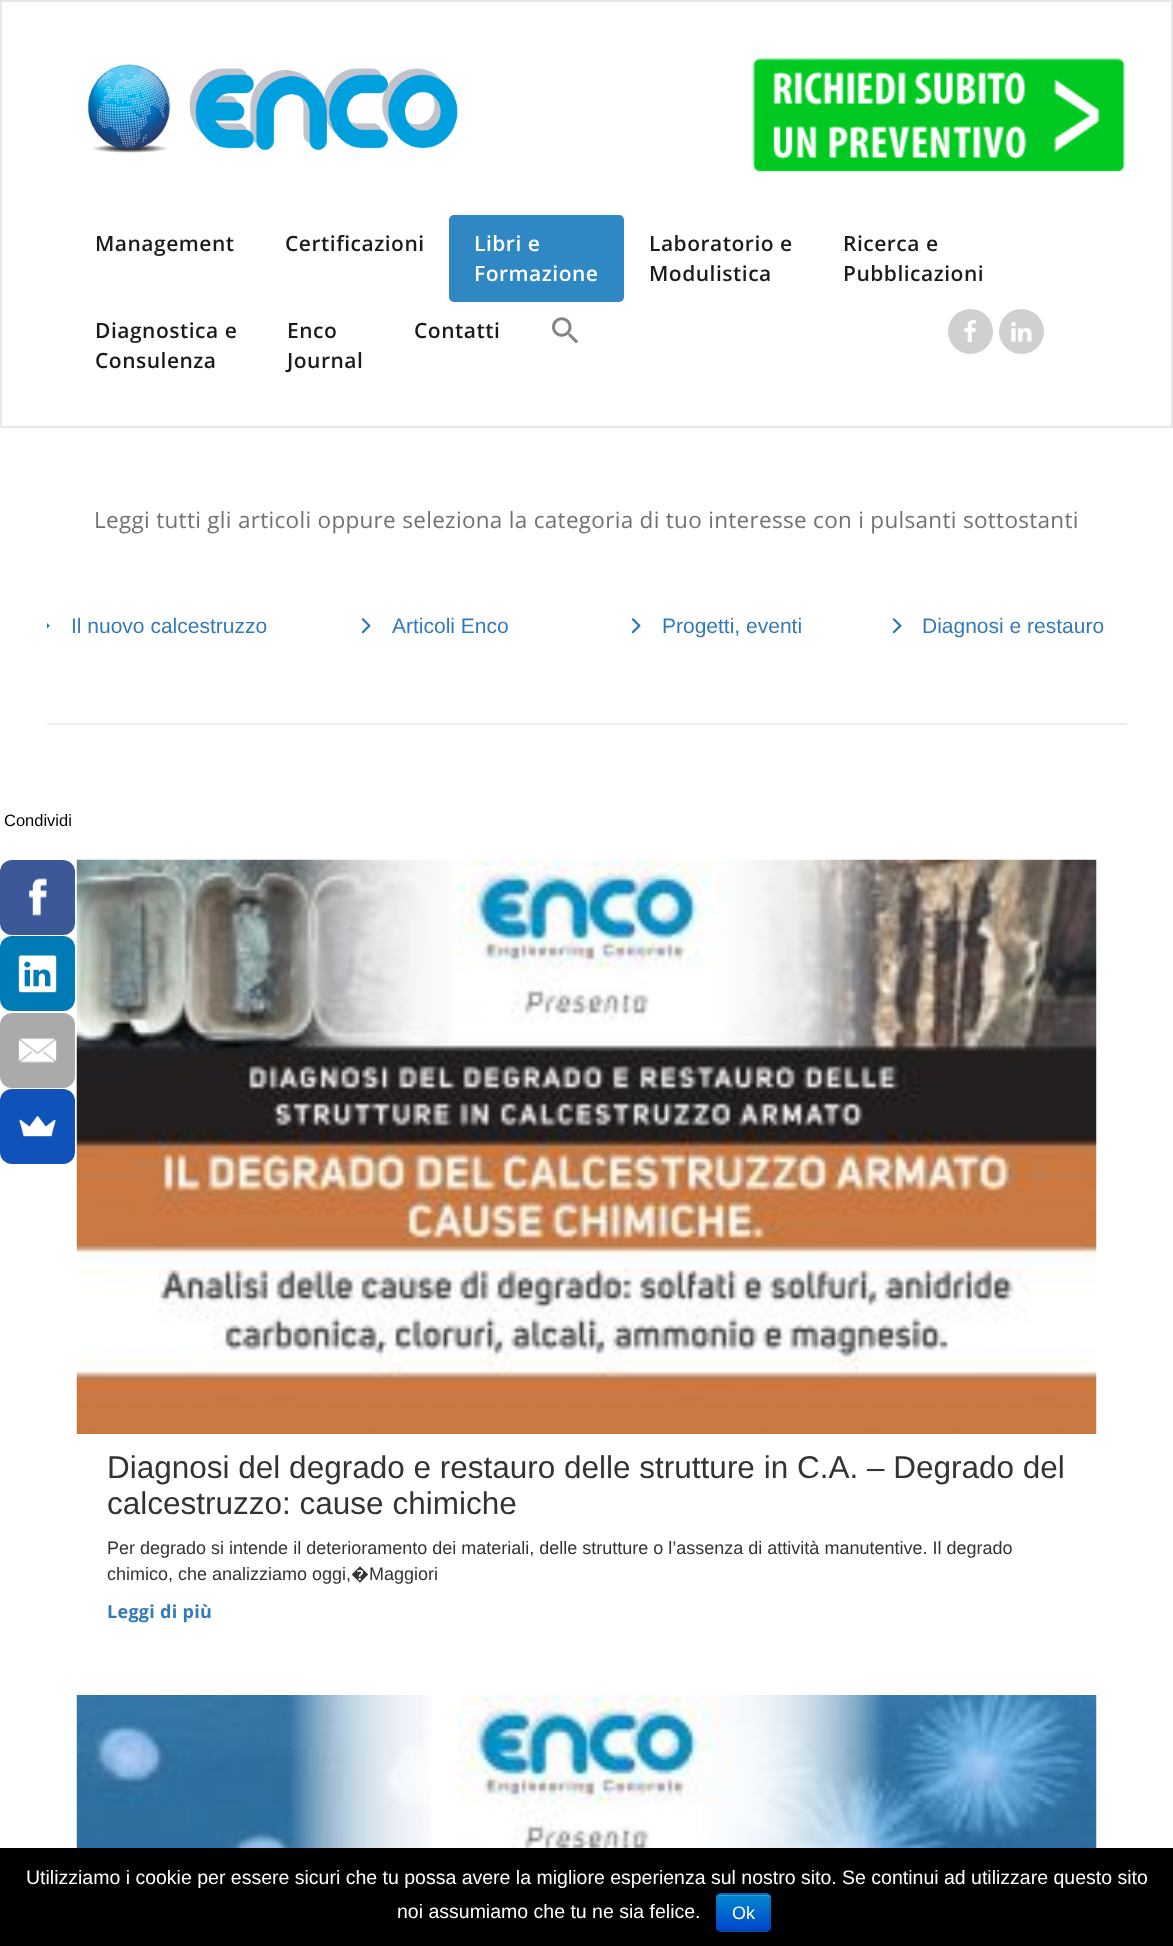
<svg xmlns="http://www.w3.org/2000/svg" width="1173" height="1946">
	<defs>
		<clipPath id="clip1"><rect x="716" y="1893" width="55" height="39" rx="5" /></clipPath>
		<linearGradient id="g1" gradientUnits="userSpaceOnUse" x1="743" y1="1895" x2="743" y2="1931"><stop offset="0" stop-color="#0088CC" /><stop offset="1" stop-color="#0044CC" /></linearGradient>
	</defs>
	<rect width="100%" height="100%" fill="#FFFFFF" />
	<rect x="1" y="1" width="1171" height="426" fill="none" stroke="#E7E7E7" stroke-width="2" />
	<image x="87" y="64" width="371" height="89" href="assets/img1.png" />
	<image x="752" y="58" width="374" height="114" href="assets/img2.png" />
	<g font-family="Open Sans" font-size="21" font-weight="600" letter-spacing="0.5" fill="#1B1B1B">
		<text x="95" y="251">Management</text>
		<text x="285" y="251">Certificazioni</text>
	</g>
	<rect x="449" y="215" width="175" height="87" rx="5" fill="#2F88C4" />
	<g font-family="Open Sans" font-size="21" font-weight="600" letter-spacing="0.5" fill="#FFFFFF">
		<text x="474" y="251">Libri e</text>
		<text x="474" y="281">Formazione</text>
	</g>
	<g font-family="Open Sans" font-size="21" font-weight="600" letter-spacing="0.5" fill="#1B1B1B">
		<text x="649" y="251">Laboratorio e</text>
		<text x="649" y="281">Modulistica</text>
		<text x="843" y="251">Ricerca e</text>
		<text x="843" y="281">Pubblicazioni</text>
		<text x="95" y="338">Diagnostica e</text>
		<text x="95" y="368">Consulenza</text>
		<text x="287" y="338">Enco</text>
		<text x="287" y="368">Journal</text>
		<text x="414" y="338">Contatti</text>
	</g>
	<image x="552" y="317" width="27" height="27" href="assets/img3.png" />
	<circle cx="970.5" cy="331.5" r="22.5" fill="#D0D0D0" />
	<image x="964" y="320" width="12" height="23" href="assets/img4.png" />
	<circle cx="1021.5" cy="331.5" r="22.5" fill="#D0D0D0" />
	<image x="1011" y="322" width="21" height="20" href="assets/img5.png" />
	<text x="4" y="826" font-family="Liberation Sans" font-size="16.5" fill="#000000">Condividi</text>
	<rect x="0" y="860" width="75" height="75" rx="12" fill="#3B5998" />
	<image x="29" y="878" width="18" height="38" href="assets/img6.png" />
	<rect x="0" y="936" width="75" height="75" rx="12" fill="#007BB6" />
	<image x="18" y="955" width="39" height="38" href="assets/img7.png" />
	<rect x="0" y="1013" width="75" height="75" rx="12" fill="#AAAAAA" />
	<image x="18" y="1038" width="39" height="25" href="assets/img8.png" />
	<rect x="0" y="1089" width="75" height="75" rx="12" fill="#0F52BA" />
	<image x="19" y="1116" width="37" height="21" href="assets/img9.png" />
	<text x="94" y="528" font-family="Open Sans" font-size="22.5" letter-spacing="0.3" fill="#727272">Leggi tutti gli articoli oppure seleziona la categoria di tuo interesse con i pulsanti sottostanti</text>
	<image x="47" y="623" width="3" height="6" href="assets/img10.png" />
	<text x="71" y="633" font-family="Liberation Sans" font-size="21" fill="#337AB7">Il nuovo calcestruzzo</text>
	<image x="361" y="618" width="10" height="16" href="assets/img11.png" />
	<text x="392" y="633" font-family="Liberation Sans" font-size="21" fill="#337AB7">Articoli Enco</text>
	<image x="631" y="618" width="10" height="16" href="assets/img11.png" />
	<text x="662" y="633" font-family="Liberation Sans" font-size="21" fill="#337AB7">Progetti, eventi</text>
	<image x="892" y="618" width="10" height="16" href="assets/img11.png" />
	<text x="922" y="633" font-family="Liberation Sans" font-size="21" fill="#337AB7">Diagnosi e restauro</text>
	<rect x="47" y="723" width="1080" height="2" fill="#EEEEEE" />
	<image x="76" y="859" width="1021" height="575" href="assets/img12.png" />
	<g font-family="Liberation Sans" font-size="31.5" fill="#333333">
		<text x="107" y="1478">Diagnosi del degrado e restauro delle strutture in C.A. – Degrado del</text>
		<text x="107" y="1514">calcestruzzo: cause chimiche</text>
	</g>
	<g font-family="Liberation Sans" font-size="18" fill="#333333">
		<text x="107" y="1554">Per degrado si intende il deterioramento dei materiali, delle strutture o l’assenza di attività manutentive. Il degrado</text>
		<text x="107" y="1580">chimico, che analizziamo oggi,</text>
	</g>
	<text x="351" y="1580" font-family="Noto Sans" font-size="18" fill="#333333">�</text>
	<text x="369" y="1580" font-family="Liberation Sans" font-size="18" fill="#333333">Maggiori</text>
	<text x="107" y="1618" font-family="Open Sans" font-size="18" font-weight="700" letter-spacing="0.3" fill="#337AB7">Leggi di più</text>
	<image x="76" y="1695" width="1021" height="153" href="assets/img13.png" />
	<rect x="0" y="1848" width="1173" height="98" fill="#000000" />
	<g font-family="Liberation Sans" font-size="19.5" fill="#FFFFFF">
		<text x="26" y="1884">Utilizziamo i cookie per essere sicuri che tu possa avere la migliore esperienza sul nostro sito. Se continui ad utilizzare questo sito</text>
		<text x="397" y="1918">noi assumiamo che tu ne sia felice.</text>
	</g>
	<rect x="716" y="1893" width="55" height="39" rx="5" fill="#006DCC" />
	<g clip-path="url(#clip1)">
		<rect x="716" y="1895" width="55" height="36" fill="url(#g1)" />
	</g>
	<path d="M720 1896H766C768 1896 770 1897 770 1899C770 1893 764 1895 759 1895H728C723 1895 717 1893 717 1899C717 1897 718 1896 720 1896Z" fill="#339FD6" />
	<path d="M769 1930C768.5 1931 767.5 1931 766.5 1931H720C719 1931 718 1931 717.5 1930" fill="none" stroke="#000000" stroke-opacity="0.25" stroke-width="1.5" />
	<path d="M717.5 1930C716.5 1929.5 716 1928.5 716 1927.5V1897.5C716 1896.5 716.5 1895.5 717.5 1895C718 1894 719 1894 720 1894H766.5C767.5 1894 768.5 1894 769 1895C770 1895.5 770 1896.5 770 1897.5V1927.5C770 1928.5 770 1929.5 769 1930" fill="none" stroke="#000000" stroke-opacity="0.1" stroke-width="1.5" />
	<text x="732" y="1919" font-family="Liberation Sans" font-size="18" fill="#FFFFFF">Ok</text>
</svg>
